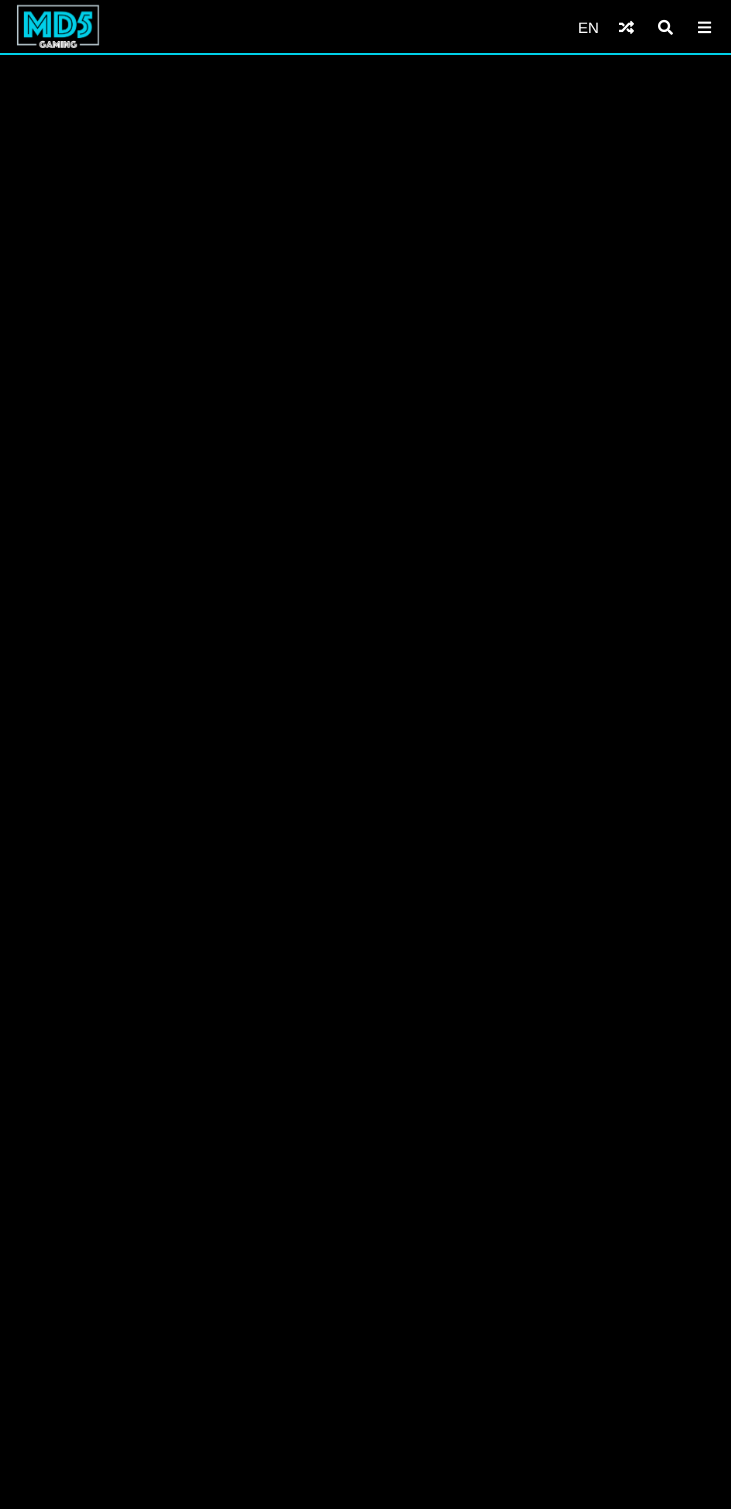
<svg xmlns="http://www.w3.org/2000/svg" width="731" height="1509">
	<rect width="100%" height="100%" fill="#000000" />
	<rect x="0" y="53" width="731" height="2" fill="#00D0E9" />
	<image x="16" y="4" width="84" height="44" href="assets/img1.png" />
	<text x="578" y="33" font-family="Liberation Sans" font-size="15" fill="#FFFFFF">EN</text>
	<image x="619" y="20" width="15" height="14" href="assets/img2.png" />
	<image x="658" y="19" width="15" height="16" href="assets/img3.png" />
	<image x="698" y="21" width="14" height="13" href="assets/img4.png" />
</svg>
